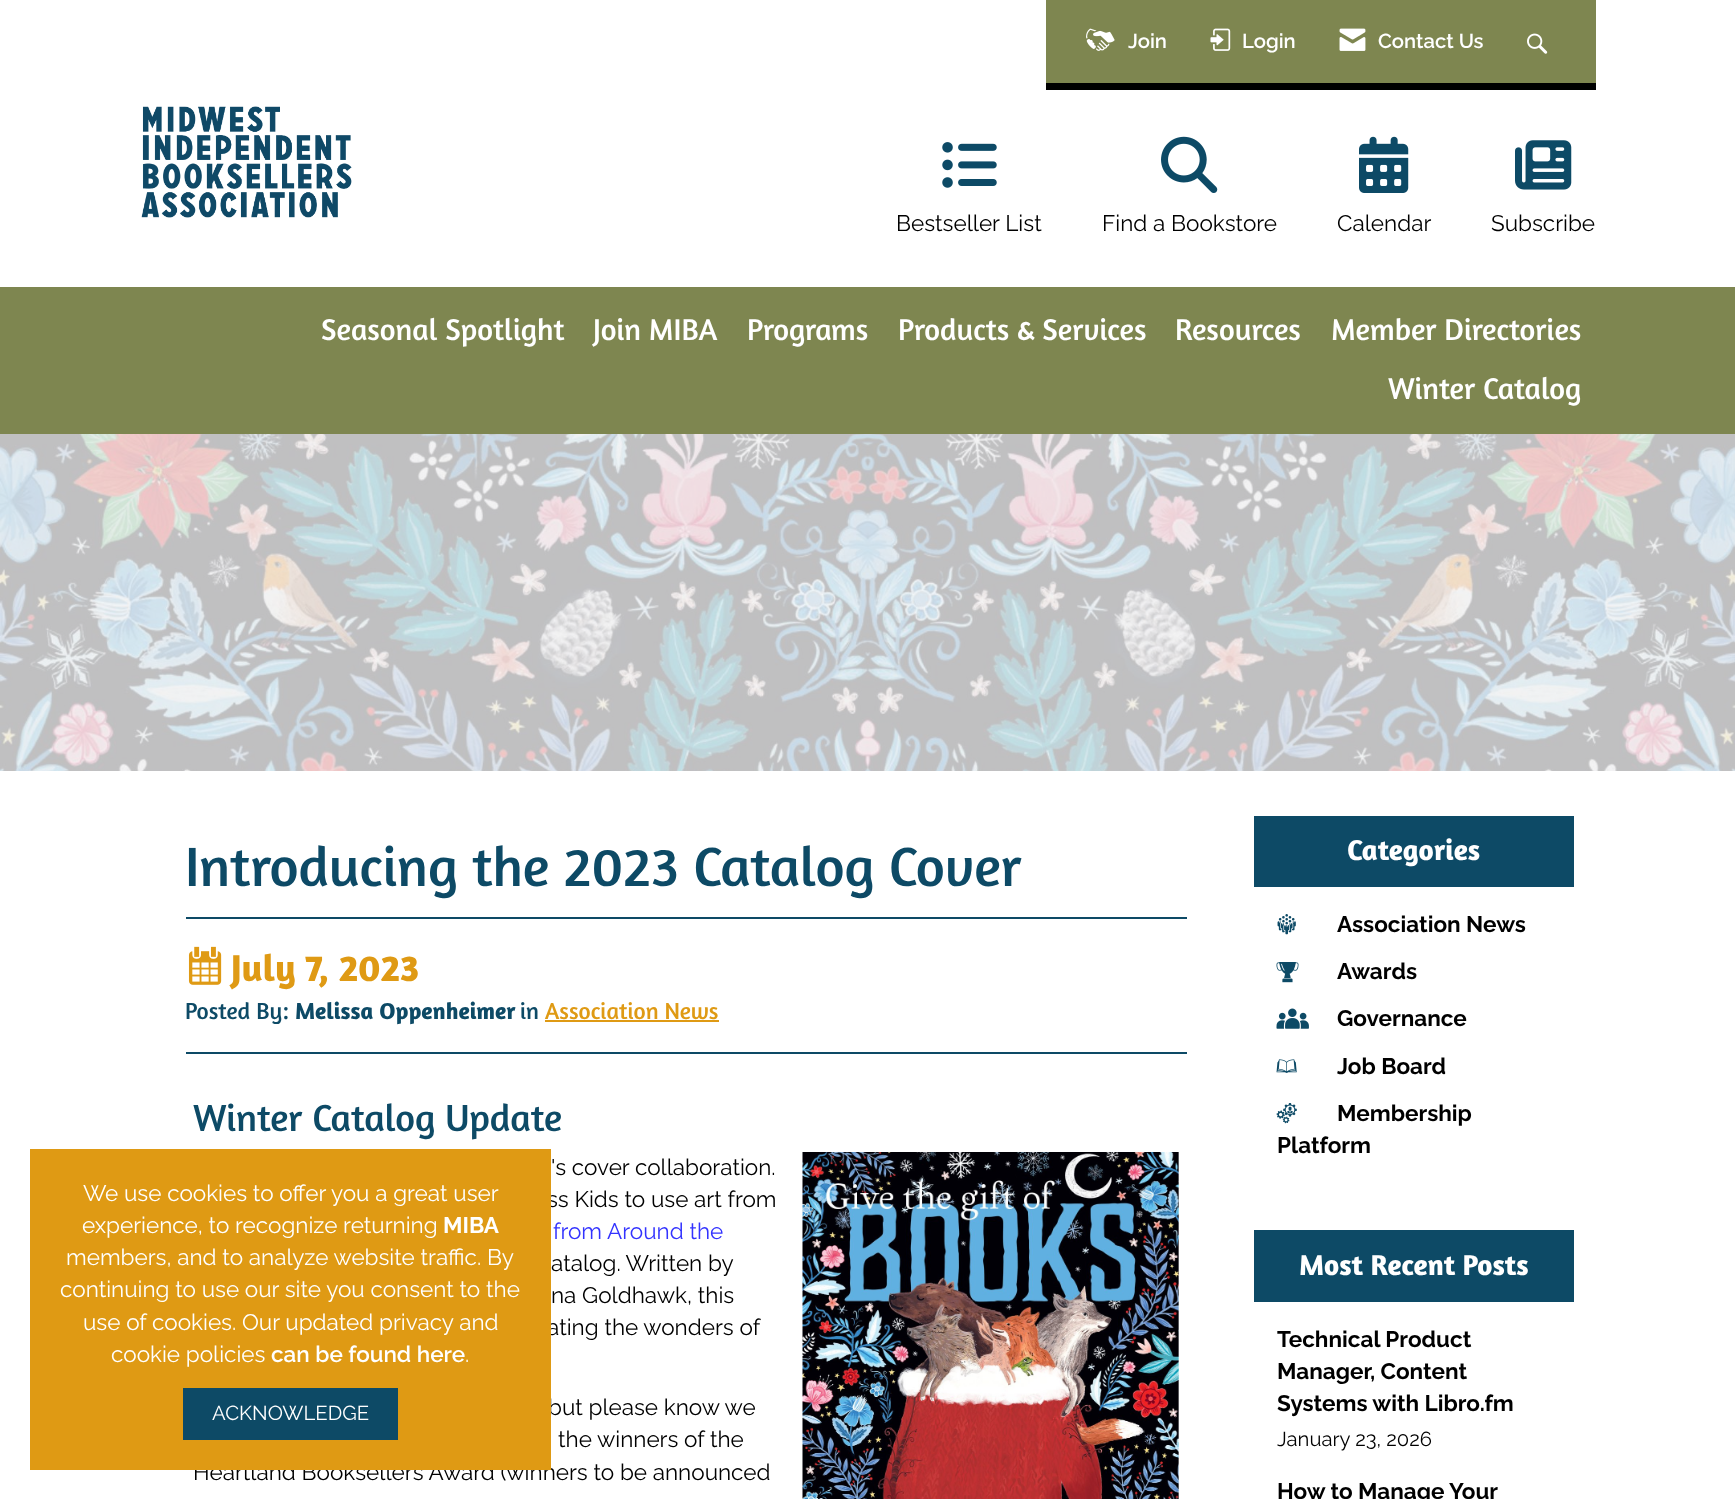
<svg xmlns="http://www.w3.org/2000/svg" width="1735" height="1499">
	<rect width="100%" height="100%" fill="#FFFFFF" />
	<rect x="1046" y="0" width="550" height="83" fill="#7E8650" />
	<rect x="1046" y="83" width="550" height="7" fill="#000000" />
	<image x="1086" y="28" width="29" height="23" href="assets/img1.png" />
	<text x="1128" y="48" font-family="Raleway" font-size="20.25" font-weight="600" fill="#FFFFFF">Join</text>
	<image x="1210" y="28" width="21" height="23" href="assets/img2.png" />
	<text x="1242" y="48" font-family="Raleway" font-size="20.25" font-weight="600" fill="#FFFFFF">Login</text>
	<image x="1339" y="28" width="27" height="23" href="assets/img3.png" />
	<text x="1378" y="48" font-family="Raleway" font-size="20.25" font-weight="600" fill="#FFFFFF">Contact Us</text>
	<image x="1527" y="33" width="21" height="21" href="assets/img4.png" />
	<image x="141" y="106" width="211" height="112" href="assets/img5.png" />
	<image x="942" y="142" width="55" height="46" href="assets/img6.png" />
	<text x="896" y="231" font-family="Raleway" font-size="22.5" fill="#000000">Bestseller List</text>
	<image x="1161" y="136" width="57" height="57" href="assets/img7.png" />
	<text x="1102" y="231" font-family="Raleway" font-size="22.5" fill="#000000">Find a Bookstore</text>
	<image x="1359" y="136" width="50" height="57" href="assets/img8.png" />
	<text x="1337" y="231" font-family="Raleway" font-size="22.5" fill="#000000">Calendar</text>
	<image x="1515" y="140" width="57" height="50" href="assets/img9.png" />
	<text x="1491" y="231" font-family="Raleway" font-size="22.5" fill="#000000">Subscribe</text>
	<rect x="0" y="287" width="1735" height="147" fill="#7E8650" />
	<g font-family="Amaranth" font-size="30.5" fill="#FFFFFF">
		<text x="321" y="340">Seasonal Spotlight</text>
		<text x="593" y="340">Join MIBA</text>
		<text x="747" y="340">Programs</text>
		<text x="898" y="340">Products &amp; Services</text>
		<text x="1175" y="340">Resources</text>
		<text x="1331" y="340">Member Directories</text>
		<text x="1388" y="399">Winter Catalog</text>
	</g>
	<image x="0" y="434" width="1735" height="337" href="assets/img10.png" />
	<rect x="186" y="917" width="1001" height="2" fill="#0D4A66" />
	<text x="185" y="886" font-family="Amaranth" font-size="56.25" fill="#0D4A66">Introducing the 2023 Catalog Cover</text>
	<rect x="186" y="1052" width="1001" height="2" fill="#0D4A66" />
	<image x="188" y="946" width="34" height="39" href="assets/img11.png" />
	<text x="231" y="981" font-family="Amaranth" font-size="38" font-weight="700" fill="#DF9A14">July 7, 2023</text>
	<text x="185" y="1019" font-family="Amaranth" font-size="23.5" fill="#0D4A66">Posted By:</text>
	<text x="295" y="1019" font-family="Amaranth" font-size="23.5" font-weight="700" fill="#0D4A66">Melissa Oppenheimer</text>
	<text x="520" y="1019" font-family="Amaranth" font-size="23.5" fill="#0D4A66">in</text>
	<text x="545" y="1019" font-family="Amaranth" font-size="23.5" fill="#DF9A14">Association News</text>
	<rect x="545" y="1020" width="174" height="2" fill="#DF9A14" />
	<text x="193" y="1131" font-family="Amaranth" font-size="38.25" fill="#0D4A66">Winter Catalog Update</text>
	<g font-family="Raleway" font-size="22.5" fill="#000000">
		<text x="551" y="1175">'s cover collaboration.</text>
		<text x="547" y="1207">ss Kids to use art from</text>
	</g>
	<text x="553" y="1239" font-family="Raleway" font-size="22.5" fill="#3333FF">from Around the</text>
	<g font-family="Raleway" font-size="22.5" fill="#000000">
		<text x="551" y="1271">atalog. Written by</text>
		<text x="551" y="1303">na Goldhawk, this</text>
		<text x="547" y="1335">ating the wonders of</text>
	</g>
	<image x="802" y="1152" width="377" height="347" href="assets/img12.png" />
	<g font-family="Raleway" font-size="22.5" fill="#000000">
		<text x="548" y="1415">but please know we</text>
		<text x="558" y="1447">the winners of the</text>
		<text x="193" y="1480">Heartland Booksellers Award (winners to be announced</text>
	</g>
	<rect x="1254" y="816" width="320" height="71" fill="#0D4A66" />
	<text x="1347" y="860" font-family="Amaranth" font-size="29.25" font-weight="700" fill="#FFFFFF">Categories</text>
	<image x="1277" y="914" width="19" height="21" href="assets/img13.png" />
	<text x="1337" y="932" font-family="Raleway" font-size="22.5" font-weight="700" fill="#000000">Association News</text>
	<image x="1276" y="962" width="23" height="21" href="assets/img14.png" />
	<text x="1337" y="979" font-family="Raleway" font-size="22.5" font-weight="700" fill="#000000">Awards</text>
	<image x="1276" y="1008" width="33" height="21" href="assets/img15.png" />
	<text x="1337" y="1026" font-family="Raleway" font-size="22.5" font-weight="700" fill="#000000">Governance</text>
	<image x="1276" y="1059" width="21" height="14" href="assets/img16.png" />
	<text x="1337" y="1074" font-family="Raleway" font-size="22.5" font-weight="700" fill="#000000">Job Board</text>
	<image x="1276" y="1103" width="21" height="21" href="assets/img17.png" />
	<g font-family="Raleway" font-size="22.5" font-weight="700" fill="#000000">
		<text x="1337" y="1121">Membership</text>
		<text x="1277" y="1153">Platform</text>
	</g>
	<rect x="1254" y="1230" width="320" height="72" fill="#0D4A66" />
	<text x="1299" y="1275" font-family="Amaranth" font-size="29.25" font-weight="700" fill="#FFFFFF">Most Recent Posts</text>
	<g font-family="Raleway" font-size="22.5" font-weight="700" fill="#000000">
		<text x="1277" y="1347">Technical Product</text>
		<text x="1277" y="1379">Manager, Content</text>
		<text x="1277" y="1411">Systems with Libro.fm</text>
	</g>
	<text x="1277" y="1446" font-family="Raleway" font-size="20.25" fill="#000000">January 23, 2026</text>
	<text x="1277" y="1499" font-family="Raleway" font-size="22.5" font-weight="700" fill="#000000">How to Manage Your</text>
	<rect x="30" y="1149" width="521" height="321" fill="#DF9A14" />
	<g font-family="Raleway" font-size="22.5" fill="#FFFFFF">
		<text x="83" y="1201">We use cookies to offer you a great user</text>
		<text x="82" y="1233">experience, to recognize returning</text>
	</g>
	<text x="443" y="1233" font-family="Raleway" font-size="22.5" font-weight="700" fill="#FFFFFF">MIBA</text>
	<g font-family="Raleway" font-size="22.5" fill="#FFFFFF">
		<text x="66" y="1265">members, and to analyze website traffic. By</text>
		<text x="60" y="1297">continuing to use our site you consent to the</text>
		<text x="83" y="1330">use of cookies. Our updated privacy and</text>
		<text x="111" y="1362">cookie policies</text>
	</g>
	<text x="271" y="1362" font-family="Raleway" font-size="22.5" font-weight="600" fill="#FFFFFF">can be found here</text>
	<text x="465" y="1362" font-family="Raleway" font-size="22.5" fill="#FFFFFF">.</text>
	<rect x="183" y="1388" width="215" height="52" fill="#0D4A66" />
	<text x="212" y="1420" font-family="Raleway" font-size="20.25" fill="#FFFFFF">ACKNOWLEDGE</text>
</svg>
